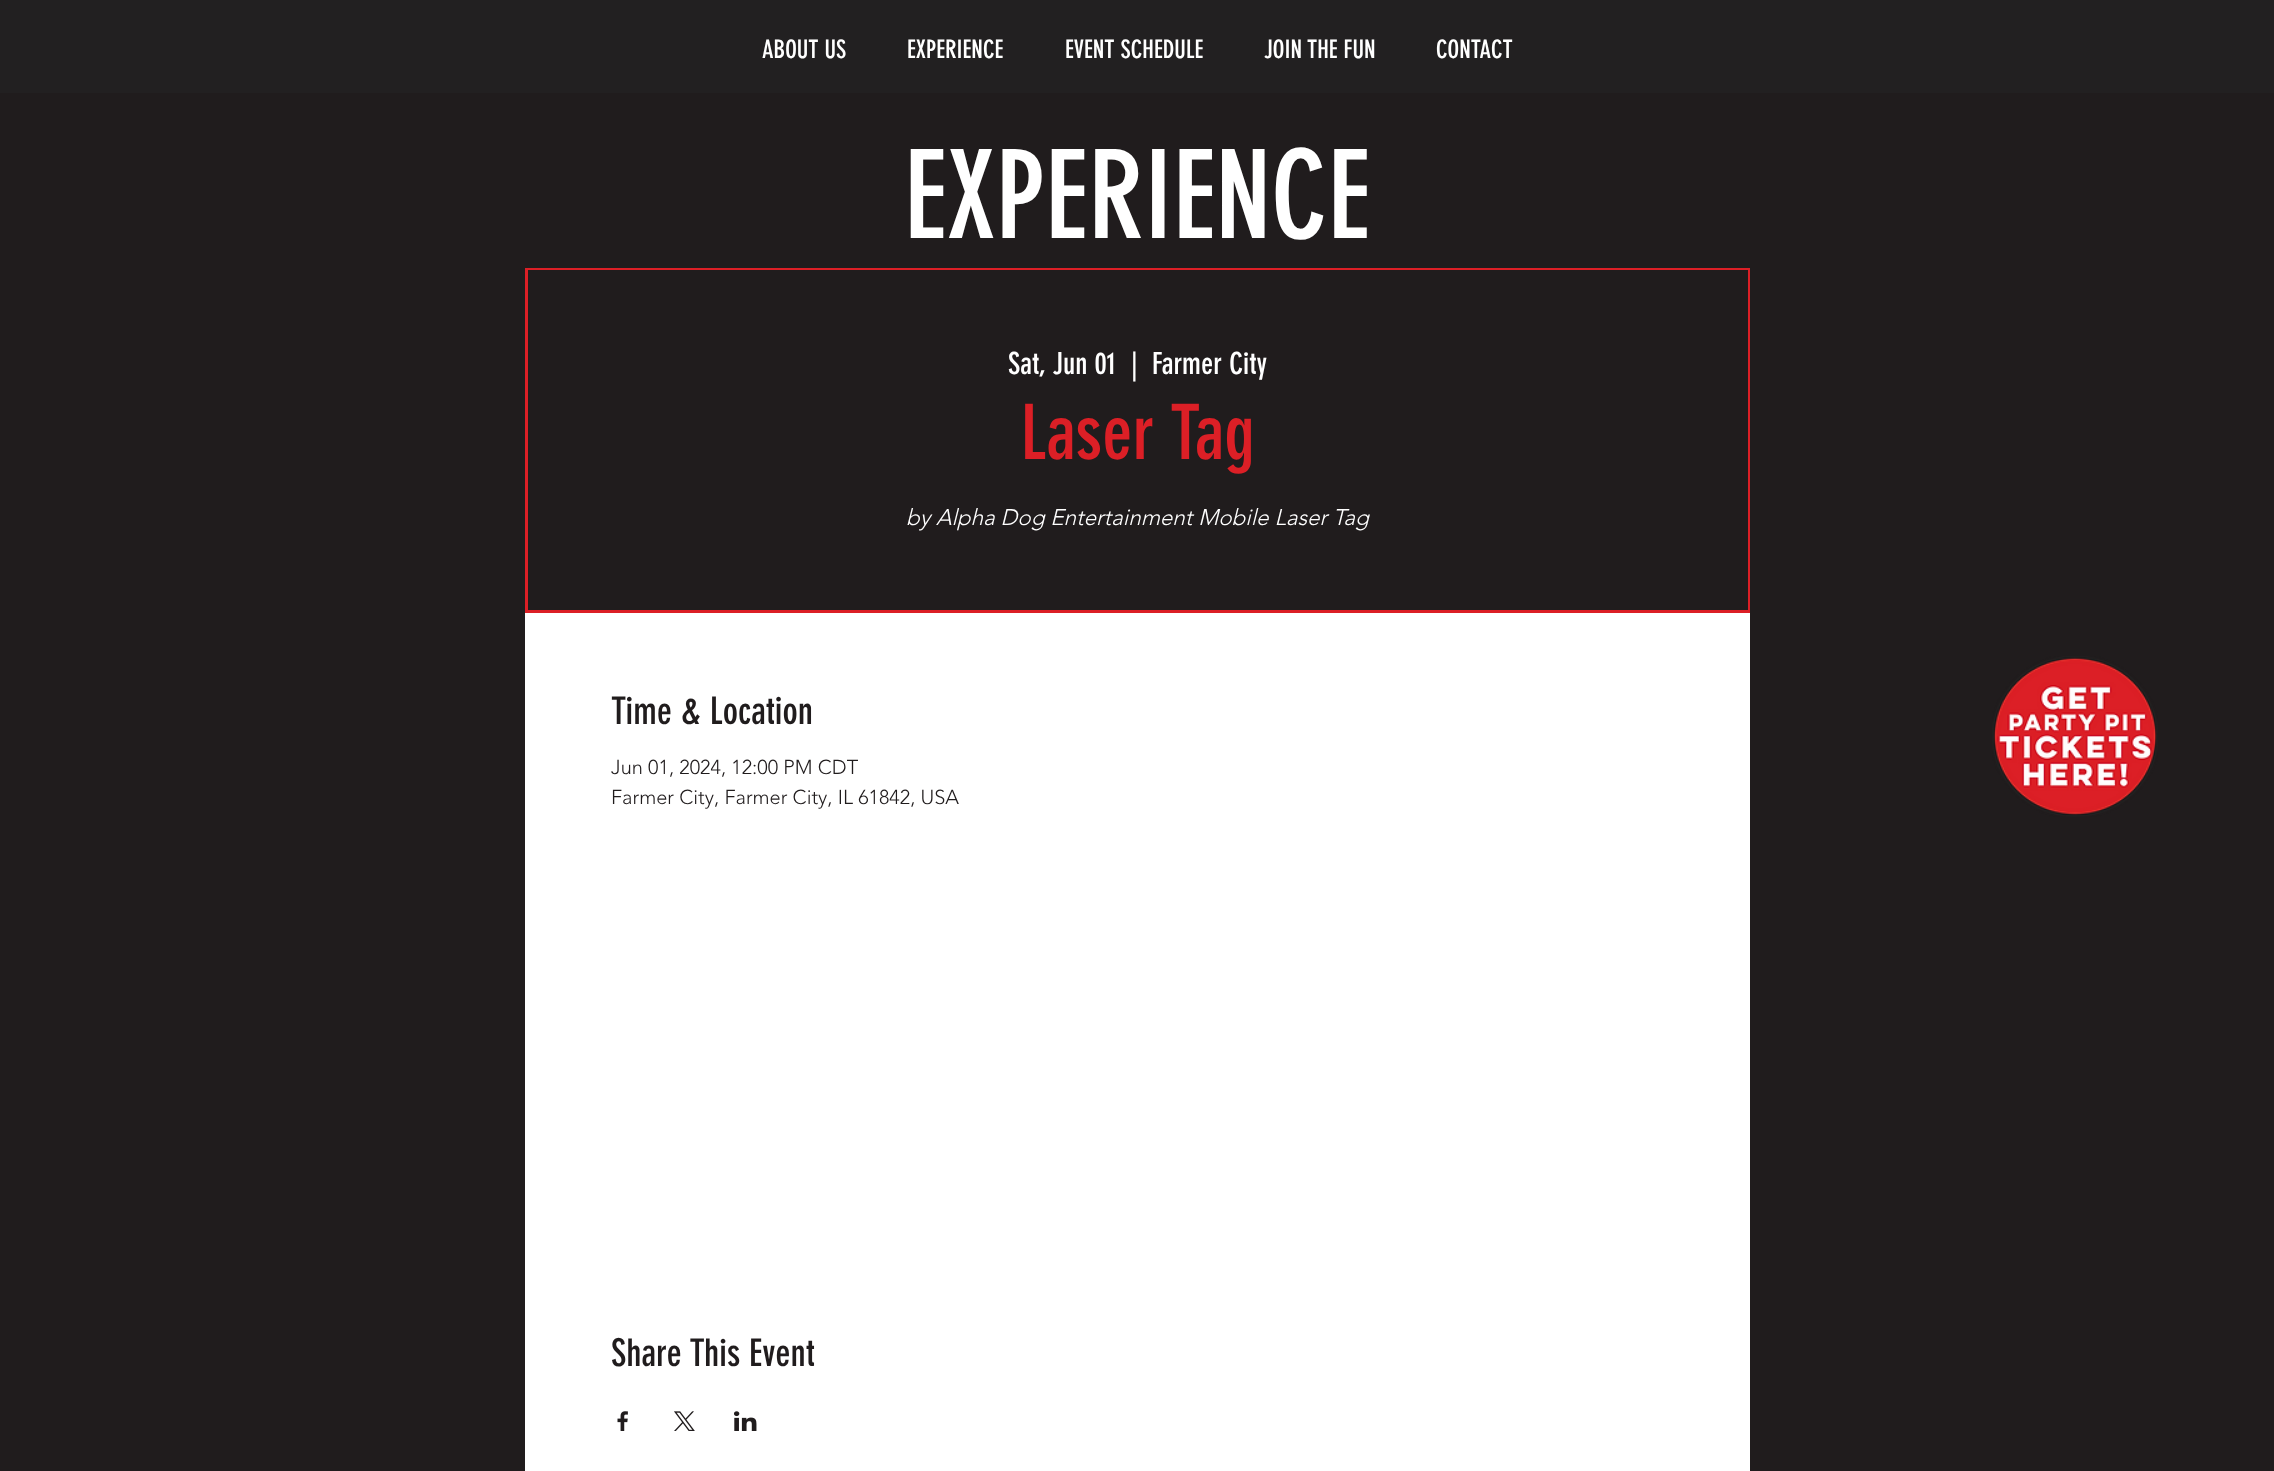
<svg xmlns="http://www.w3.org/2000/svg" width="2274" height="1471">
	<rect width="100%" height="100%" fill="#201C1D" />
	<rect x="0" y="0" width="2274" height="93" fill="#222021" />
	<g font-family="'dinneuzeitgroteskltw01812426'" font-size="25" fill="#FFFFFF">
		<text x="762" y="58">ABOUT US</text>
		<text x="907" y="58">EXPERIENCE</text>
		<text x="1065" y="58">EVENT SCHEDULE</text>
		<text x="1264" y="58">JOIN THE FUN</text>
		<text x="1436" y="58">CONTACT</text>
	</g>
	<text x="904" y="238" font-family="'dinneuzeitgroteskltw01812426'" font-size="121" fill="#FFFFFF">EXPERIENCE</text>
	<rect x="526.5" y="269.5" width="1222" height="342" fill="none" stroke="#DC1F26" stroke-width="3" />
	<rect x="528" y="270" width="1220" height="340" fill="#201C1D" />
	<g font-family="'dinneuzeitgroteskltw01812426'" font-size="30" fill="#FFFFFF">
		<text x="1008" y="374">Sat, Jun 01</text>
		<text x="1131" y="374">|</text>
		<text x="1152" y="374">Farmer City</text>
	</g>
	<text x="1020" y="459" font-family="'dinneuzeitgroteskltw01812426'" font-size="75" fill="#DC1F26">Laser Tag</text>
	<text x="906" y="525" font-family="'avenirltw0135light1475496'" font-size="22.5" font-weight="300" font-style="italic" fill="#FFFFFF">by Alpha Dog Entertainment Mobile Laser Tag</text>
	<rect x="525" y="613" width="1225" height="858" fill="#FFFFFF" />
	<text x="611" y="724" font-family="'dinneuzeitgroteskltw01812426'" font-size="37.5" fill="#201C1D">Time &amp; Location</text>
	<g font-family="'avenirltw0135light1475496'" font-size="20" font-weight="300" fill="#201C1D">
		<text x="611" y="774">Jun 01, 2024, 12:00 PM CDT</text>
		<text x="611" y="804">Farmer City, Farmer City, IL 61842, USA</text>
	</g>
	<text x="611" y="1366" font-family="'dinneuzeitgroteskltw01812426'" font-size="37.5" fill="#201C1D">Share This Event</text>
	<image x="617" y="1411" width="11" height="20" href="assets/img1.png" />
	<image x="674" y="1411" width="21" height="20" href="assets/img2.png" />
	<image x="734" y="1411" width="23" height="20" href="assets/img3.png" />
	<image x="1992" y="656" width="166" height="161" href="assets/img4.png" />
</svg>
